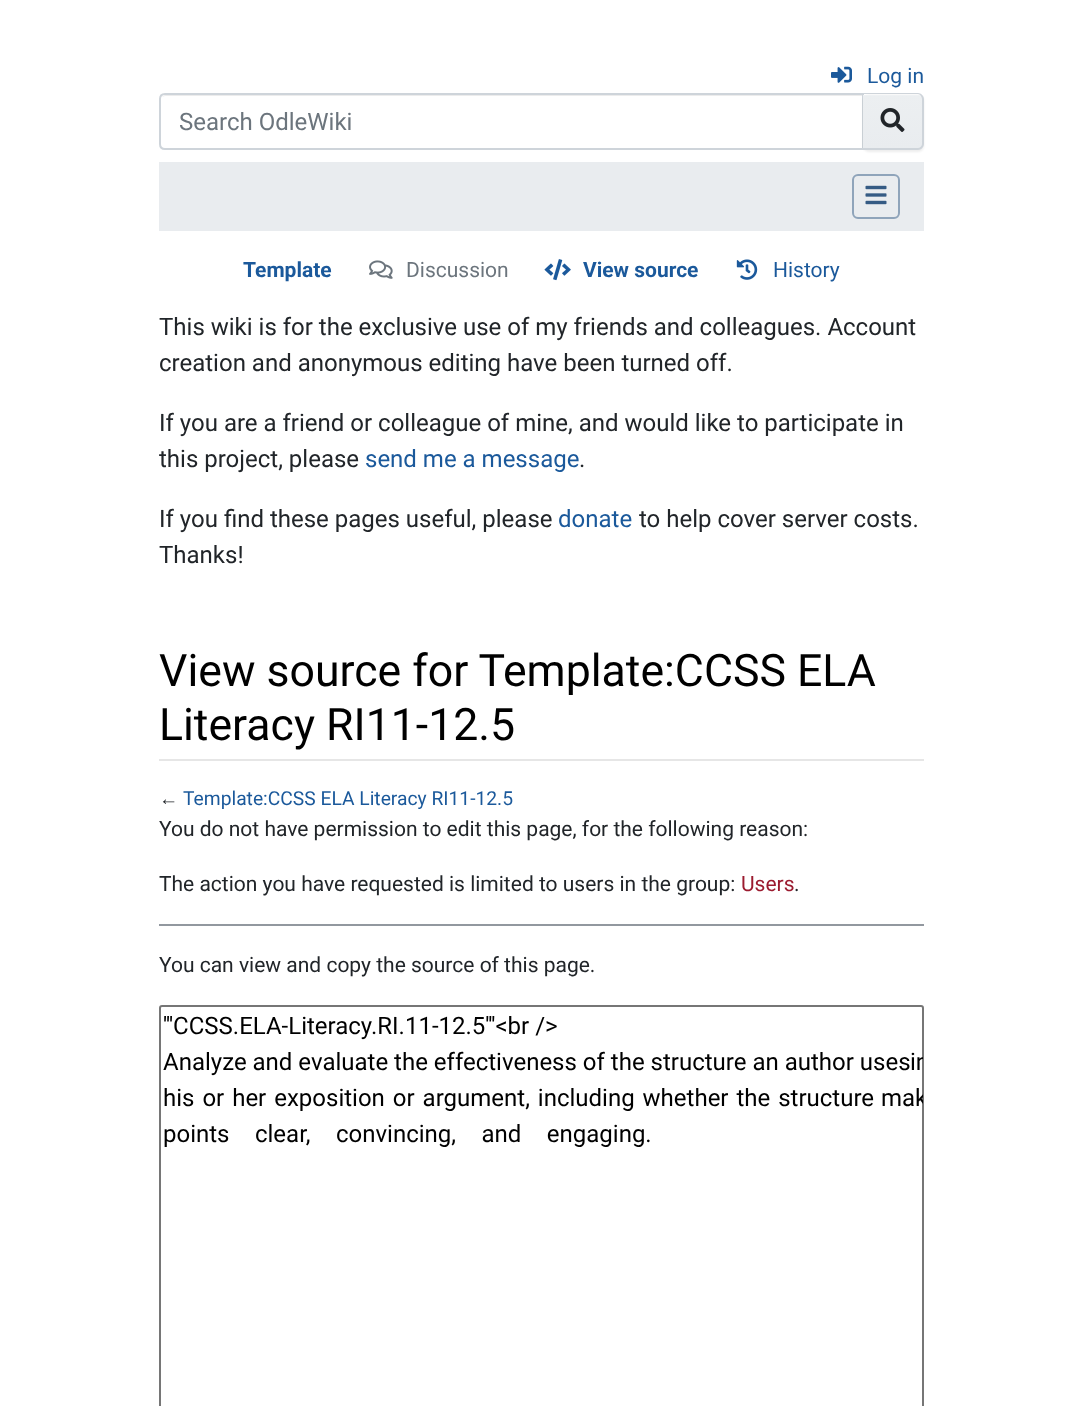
<svg xmlns="http://www.w3.org/2000/svg" width="1082" height="1406">
	<defs>
		<linearGradient id="g1" gradientUnits="userSpaceOnUse" x1="893" y1="95" x2="893" y2="149"><stop offset="0" stop-color="#ECEFF1" /><stop offset="1" stop-color="#E9ECEF" /></linearGradient>
		<clipPath id="clip1"><rect x="161" y="1007" width="762" height="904" /></clipPath>
	</defs>
	<rect width="100%" height="100%" fill="#FFFFFF" />
	<image x="831" y="66" width="21" height="17" href="assets/img1.png" />
	<text x="867" y="83" font-family="Roboto" font-size="21" fill="#1B599B">Log in</text>
	<path d="M165 96H862V149H863V95H166C164 95 163 96 162 97Z" fill="#ECECEC" />
	<path d="M165 94H863V149H165C162 149 160 147 160 144V99C160 96 162 94 165 94Z" fill="none" stroke="#CED4DA" stroke-width="2" />
	<text x="179" y="130" font-family="Roboto" font-size="24" fill="#6C757D">Search OdleWiki</text>
	<rect x="863" y="95" width="61" height="57" rx="6" fill="#000000" fill-opacity="0.07" filter="blur(1px)" />
	<path d="M863 95H918C921 95 923 97 923 100V144C923 147 921 149 918 149H863Z" fill="url(#g1)" />
	<path d="M863 95V96H919C924 97 922 105 922 108V147C923 146 923 145 923 144V100C923 97 921 95 918 95Z" fill="#FFFFFF" fill-opacity="0.15" />
	<path d="M862 93H918C921 93 924 96 924 99V144C924 147 921 150 918 150H862ZM862 94H918C920 94 922 97 922 99V144C922 146 920 148 918 148H862Z" fill="#CED4DA" fill-rule="evenodd" />
	<image x="880" y="108" width="25" height="24" href="assets/img2.png" />
	<rect x="159" y="162" width="765" height="69" fill="#E9ECEF" />
	<rect x="853" y="175" width="46" height="43" rx="5" fill="none" stroke="#8FA4BA" stroke-width="2" />
	<image x="865" y="185" width="22" height="20" href="assets/img3.png" />
	<text x="243" y="277" font-family="Roboto" font-size="21" font-weight="700" fill="#1B599B">Template</text>
	<image x="369" y="260" width="24" height="19" href="assets/img4.png" />
	<text x="406" y="277" font-family="Roboto" font-size="21" fill="#6C757D">Discussion</text>
	<image x="544" y="259" width="27" height="22" href="assets/img5.png" />
	<text x="583" y="277" font-family="Roboto" font-size="21" font-weight="700" fill="#1B599B">View source</text>
	<image x="736" y="259" width="22" height="21" href="assets/img6.png" />
	<text x="773" y="277" font-family="Roboto" font-size="21" fill="#1B599B">History</text>
	<g font-family="Roboto" font-size="24" fill="#212529">
		<text x="159" y="335">This wiki is for the exclusive use of my friends and colleagues. Account</text>
		<text x="159" y="371">creation and anonymous editing have been turned off.</text>
		<text x="159" y="431">If you are a friend or colleague of mine, and would like to participate in</text>
		<text x="159" y="467">this project, please</text>
	</g>
	<text x="365" y="467" font-family="Roboto" font-size="24" fill="#1B599B">send me a message</text>
	<g font-family="Roboto" font-size="24" fill="#212529">
		<text x="579" y="467">.</text>
		<text x="159" y="527">If you find these pages useful, please</text>
	</g>
	<text x="558" y="527" font-family="Roboto" font-size="24" fill="#1B599B">donate</text>
	<g font-family="Roboto" font-size="24" fill="#212529">
		<text x="639" y="527">to help cover server costs.</text>
		<text x="159" y="563">Thanks!</text>
	</g>
	<rect x="159" y="759" width="765" height="2" fill="#E6E6E6" />
	<g font-family="Roboto" font-size="44.6" fill="#000000">
		<text x="159" y="686">View source for Template:CCSS ELA</text>
		<text x="159" y="740">Literacy RI11-12.5</text>
	</g>
	<text x="159" y="805" font-family="Liberation Sans" font-size="19.25" fill="#212529">←</text>
	<text x="183" y="805" font-family="Roboto" font-size="19.25" fill="#1B599B">Template:CCSS ELA Literacy RI11-12.5</text>
	<g font-family="Roboto" font-size="21" fill="#212529">
		<text x="159" y="836">You do not have permission to edit this page, for the following reason:</text>
		<text x="159" y="891">The action you have requested is limited to users in the group:</text>
	</g>
	<text x="741" y="891" font-family="Roboto" font-size="21" fill="#9B1B2F">Users</text>
	<text x="794" y="891" font-family="Roboto" font-size="21" fill="#212529">.</text>
	<rect x="159" y="924" width="765" height="2" fill="#92989F" />
	<text x="159" y="972" font-family="Roboto" font-size="21" fill="#212529">You can view and copy the source of this page.</text>
	<rect x="160" y="1006" width="763" height="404" rx="2" fill="none" stroke="#767676" stroke-width="2" />
	<g font-family="Roboto" font-size="24" fill="#000000">
		<text x="163" y="1034">'''CCSS.ELA-Literacy.RI.11-12.5'''&lt;br /&gt;</text>
		<text x="163" y="1070">Analyze and evaluate the effectiveness of the structure an author uses</text>
	</g>
	<g clip-path="url(#clip1)">
		<text x="910" y="1070" font-family="Roboto" font-size="24" fill="#000000">in</text>
	</g>
	<text x="163" y="1106" word-spacing="2" font-family="Roboto" font-size="24" fill="#000000">his or her exposition or argument, including whether the structure</text>
	<g clip-path="url(#clip1)">
		<text x="881" y="1106" font-family="Roboto" font-size="24" fill="#000000">mak</text>
	</g>
	<text x="163" y="1142" word-spacing="19.5" font-family="Roboto" font-size="24" fill="#000000">points clear, convincing, and engaging.</text>
</svg>
